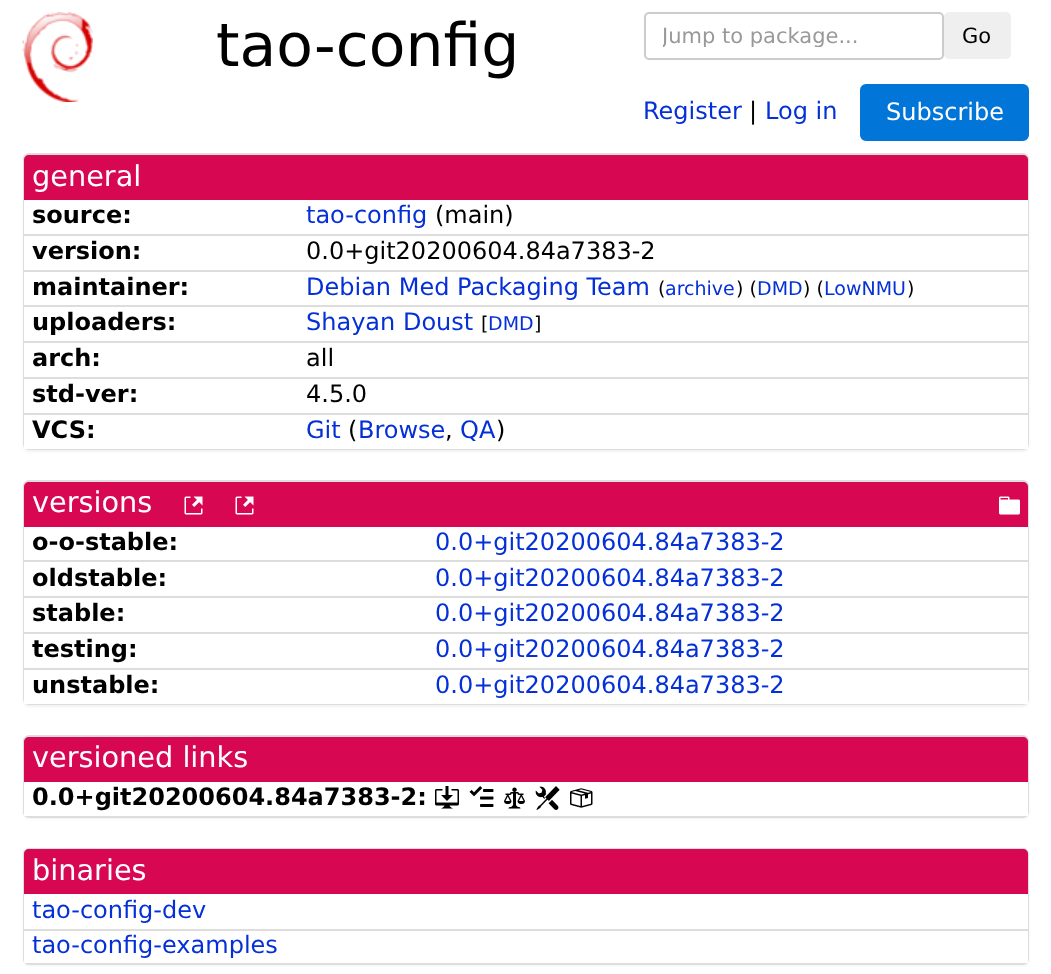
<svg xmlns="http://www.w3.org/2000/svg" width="1051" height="974">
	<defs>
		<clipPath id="clip1"><rect x="663" y="23" width="255" height="24" /></clipPath>
	</defs>
	<rect width="100%" height="100%" fill="#FFFFFF" />
	<image x="22" y="12" width="71" height="90" href="assets/img1.png" />
	<text x="216" y="66" font-family="DejaVu Sans" font-size="60" fill="#000000">tao-config</text>
	<rect x="645" y="13" width="298" height="46" rx="4" fill="none" stroke="#CCCCCC" stroke-width="2" />
	<g clip-path="url(#clip1)">
		<text x="662" y="43" font-family="DejaVu Sans" font-size="21" fill="#999999">Jump to package...</text>
	</g>
	<rect x="944" y="12" width="67" height="47" rx="5" fill="#EFEFEF" />
	<text x="962" y="43" font-family="DejaVu Sans" font-size="21" fill="#000000">Go</text>
	<text x="643" y="119" font-family="DejaVu Sans" font-size="24" fill="#0530D7">Register</text>
	<text x="749" y="119" font-family="DejaVu Sans" font-size="24" fill="#000000">|</text>
	<text x="765" y="119" font-family="DejaVu Sans" font-size="24" fill="#0530D7">Log in</text>
	<rect x="861" y="85" width="167" height="55" rx="5" fill="#0275D8" stroke="#0275D8" stroke-width="2" />
	<text x="886" y="120" font-family="DejaVu Sans" font-size="24" fill="#FFFFFF">Subscribe</text>
	<rect x="23" y="155" width="1006" height="297" rx="6" fill="#000000" fill-opacity="0.05" filter="blur(1px)" />
	<rect x="24" y="154" width="1004" height="295" rx="5" fill="none" stroke="#DDDDDD" stroke-width="2" />
	<path d="M29 155H1023C1026 155 1028 157 1028 160V201H24V160C24 157 26 155 29 155Z" fill="#D70751" />
	<text x="32" y="186" font-family="DejaVu Sans" font-size="28.75" fill="#FFFFFF">general</text>
	<rect x="24" y="200" width="1004" height="249" fill="#FFFFFF" />
	<rect x="24" y="234" width="1004" height="2" fill="#DDDDDD" />
	<text x="32" y="223" font-family="DejaVu Sans" font-size="24" font-weight="700" fill="#000000">source:</text>
	<text x="306" y="223" font-family="DejaVu Sans" font-size="24" fill="#0530D7">tao-config</text>
	<text x="435" y="223" font-family="DejaVu Sans" font-size="24" fill="#000000">(main)</text>
	<rect x="24" y="270" width="1004" height="2" fill="#DDDDDD" />
	<text x="32" y="259" font-family="DejaVu Sans" font-size="24" font-weight="700" fill="#000000">version:</text>
	<text x="306" y="259" font-family="DejaVu Sans" font-size="24" fill="#000000">0.0+git20200604.84a7383-2</text>
	<text x="32" y="295" font-family="DejaVu Sans" font-size="24" font-weight="700" fill="#000000">maintainer:</text>
	<text x="306" y="295" font-family="DejaVu Sans" font-size="24" fill="#0530D7">Debian Med Packaging Team</text>
	<text x="658" y="295" font-family="DejaVu Sans" font-size="19" fill="#000000">(</text>
	<text x="665" y="295" font-family="DejaVu Sans" font-size="19" fill="#0530D7">archive</text>
	<text x="736" y="295" font-family="DejaVu Sans" font-size="19" fill="#000000">) (</text>
	<text x="757" y="295" font-family="DejaVu Sans" font-size="19" fill="#0530D7">DMD</text>
	<text x="803" y="295" font-family="DejaVu Sans" font-size="19" fill="#000000">) (</text>
	<text x="824" y="295" font-family="DejaVu Sans" font-size="19" fill="#0530D7">LowNMU</text>
	<text x="907" y="295" font-family="DejaVu Sans" font-size="19" fill="#000000">)</text>
	<rect x="24" y="305" width="1004" height="2" fill="#DDDDDD" />
	<text x="32" y="330" font-family="DejaVu Sans" font-size="24" font-weight="700" fill="#000000">uploaders:</text>
	<text x="306" y="330" font-family="DejaVu Sans" font-size="24" fill="#0530D7">Shayan Doust</text>
	<text x="481" y="330" font-family="DejaVu Sans" font-size="19" fill="#000000">[</text>
	<text x="488" y="330" font-family="DejaVu Sans" font-size="19" fill="#0530D7">DMD</text>
	<text x="534" y="330" font-family="DejaVu Sans" font-size="19" fill="#000000">]</text>
	<rect x="24" y="341" width="1004" height="2" fill="#DDDDDD" />
	<text x="32" y="366" font-family="DejaVu Sans" font-size="24" font-weight="700" fill="#000000">arch:</text>
	<text x="306" y="366" font-family="DejaVu Sans" font-size="24" fill="#000000">all</text>
	<rect x="24" y="377" width="1004" height="2" fill="#DDDDDD" />
	<text x="32" y="402" font-family="DejaVu Sans" font-size="24" font-weight="700" fill="#000000">std-ver:</text>
	<text x="306" y="402" font-family="DejaVu Sans" font-size="24" fill="#000000">4.5.0</text>
	<rect x="24" y="413" width="1004" height="2" fill="#DDDDDD" />
	<text x="32" y="438" font-family="DejaVu Sans" font-size="24" font-weight="700" fill="#000000">VCS:</text>
	<text x="306" y="438" font-family="DejaVu Sans" font-size="24" fill="#0530D7">Git</text>
	<text x="348" y="438" font-family="DejaVu Sans" font-size="24" fill="#000000">(</text>
	<text x="358" y="438" font-family="DejaVu Sans" font-size="24" fill="#0530D7">Browse</text>
	<text x="445" y="438" font-family="DejaVu Sans" font-size="24" fill="#000000">,</text>
	<text x="460" y="438" font-family="DejaVu Sans" font-size="24" fill="#0530D7">QA</text>
	<text x="496" y="438" font-family="DejaVu Sans" font-size="24" fill="#000000">)</text>
	<rect x="23" y="482" width="1006" height="225" rx="6" fill="#000000" fill-opacity="0.05" filter="blur(1px)" />
	<rect x="24" y="481" width="1004" height="223" rx="5" fill="none" stroke="#DDDDDD" stroke-width="2" />
	<path d="M29 482H1023C1026 482 1028 484 1028 487V528H24V487C24 484 26 482 29 482Z" fill="#D70751" />
	<text x="32" y="512" font-family="DejaVu Sans" font-size="28.75" fill="#FFFFFF">versions</text>
	<image x="184" y="496" width="19" height="19" href="assets/img2.png" />
	<image x="235" y="496" width="19" height="19" href="assets/img2.png" />
	<image x="999" y="496" width="21" height="19" href="assets/img3.png" />
	<rect x="24" y="527" width="1004" height="177" fill="#FFFFFF" />
	<text x="32" y="550" font-family="DejaVu Sans" font-size="24" font-weight="700" fill="#000000">o-o-stable:</text>
	<text x="435" y="550" font-family="DejaVu Sans" font-size="24" fill="#0530D7">0.0+git20200604.84a7383-2</text>
	<rect x="24" y="560" width="1004" height="2" fill="#DDDDDD" />
	<text x="32" y="586" font-family="DejaVu Sans" font-size="24" font-weight="700" fill="#000000">oldstable:</text>
	<text x="435" y="586" font-family="DejaVu Sans" font-size="24" fill="#0530D7">0.0+git20200604.84a7383-2</text>
	<rect x="24" y="596" width="1004" height="2" fill="#DDDDDD" />
	<text x="32" y="621" font-family="DejaVu Sans" font-size="24" font-weight="700" fill="#000000">stable:</text>
	<text x="435" y="621" font-family="DejaVu Sans" font-size="24" fill="#0530D7">0.0+git20200604.84a7383-2</text>
	<rect x="24" y="632" width="1004" height="2" fill="#DDDDDD" />
	<text x="32" y="657" font-family="DejaVu Sans" font-size="24" font-weight="700" fill="#000000">testing:</text>
	<text x="435" y="657" font-family="DejaVu Sans" font-size="24" fill="#0530D7">0.0+git20200604.84a7383-2</text>
	<rect x="24" y="668" width="1004" height="2" fill="#DDDDDD" />
	<text x="32" y="693" font-family="DejaVu Sans" font-size="24" font-weight="700" fill="#000000">unstable:</text>
	<text x="435" y="693" font-family="DejaVu Sans" font-size="24" fill="#0530D7">0.0+git20200604.84a7383-2</text>
	<rect x="23" y="737" width="1006" height="82" rx="6" fill="#000000" fill-opacity="0.05" filter="blur(1px)" />
	<rect x="24" y="736" width="1004" height="81" rx="5" fill="none" stroke="#DDDDDD" stroke-width="2" />
	<path d="M29 737H1023C1026 737 1028 739 1028 742V783H24V742C24 739 26 737 29 737Z" fill="#D70751" />
	<text x="32" y="767" font-family="DejaVu Sans" font-size="28.75" fill="#FFFFFF">versioned links</text>
	<rect x="24" y="782" width="1004" height="34" fill="#FFFFFF" />
	<text x="32" y="805" font-family="DejaVu Sans" font-size="24" font-weight="700" fill="#000000">0.0+git20200604.84a7383-2:</text>
	<image x="435" y="786" width="24" height="23" href="assets/img4.png" />
	<image x="469" y="786" width="25" height="21" href="assets/img5.png" />
	<image x="504" y="787" width="21" height="22" href="assets/img6.png" />
	<image x="535" y="786" width="25" height="24" href="assets/img7.png" />
	<image x="570" y="788" width="23" height="20" href="assets/img8.png" />
	<rect x="23" y="849" width="1006" height="117" rx="6" fill="#000000" fill-opacity="0.05" filter="blur(1px)" />
	<rect x="24" y="849" width="1004" height="115" rx="5" fill="none" stroke="#DDDDDD" stroke-width="2" />
	<path d="M29 849H1023C1026 849 1028 851 1028 854V896H24V854C24 851 26 849 29 849Z" fill="#D70751" />
	<text x="32" y="880" font-family="DejaVu Sans" font-size="28.75" fill="#FFFFFF">binaries</text>
	<rect x="24" y="894" width="1004" height="69" fill="#FFFFFF" />
	<text x="32" y="918" font-family="DejaVu Sans" font-size="24" fill="#0530D7">tao-config-dev</text>
	<rect x="24" y="929" width="1004" height="2" fill="#DDDDDD" />
	<text x="32" y="953" font-family="DejaVu Sans" font-size="24" fill="#0530D7">tao-config-examples</text>
</svg>
